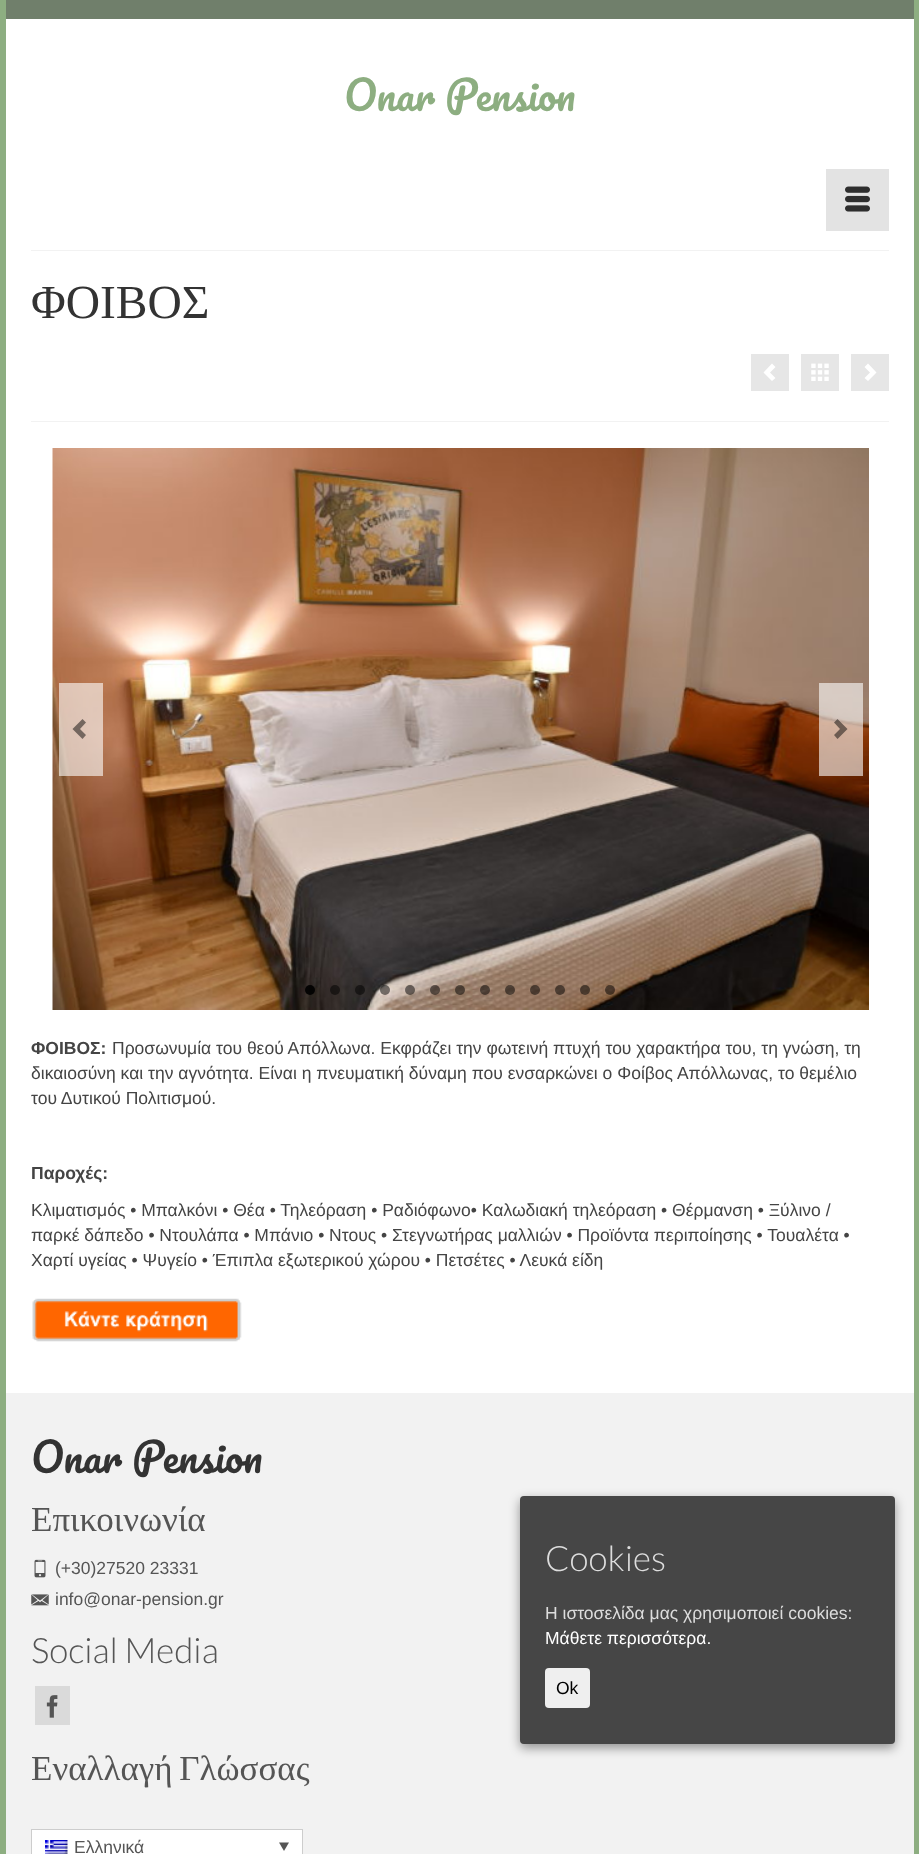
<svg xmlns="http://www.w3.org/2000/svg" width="919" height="1854">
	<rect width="100%" height="100%" fill="#8DAE81" />
	<rect x="6" y="0" width="908" height="19" fill="#707F6B" />
	<rect x="6" y="19" width="908" height="1374" fill="#FFFFFF" />
	<text x="344" y="111" font-family="Pacifico" font-size="40" fill="#8DAE81">Onar Pension</text>
	<rect x="826" y="169" width="63" height="62" fill="#E3E3E3" />
	<image x="845" y="186" width="25" height="26" href="assets/img1.png" />
	<rect x="31" y="250" width="858" height="1" fill="#F2F2F2" />
	<rect x="31" y="421" width="858" height="1" fill="#F2F2F2" />
	<text x="31" y="318" font-family="Liberation Serif" font-size="47.5" fill="#333333">ΦΟΙΒΟΣ</text>
	<rect x="751" y="354" width="38" height="37" fill="#E6E6E6" />
	<rect x="801" y="354" width="38" height="37" fill="#E6E6E6" />
	<rect x="851" y="354" width="38" height="37" fill="#E6E6E6" />
	<path d="M772 381L775.5 378L770 372.5L775.5 367L772 363.5L763.5 372.5Z" fill="#FFFFFF" />
	<image x="811" y="363" width="18" height="18" href="assets/img2.png" />
	<path d="M868 363.5L864.5 367L870 372.5L864.5 378L868 381L876.5 372.5Z" fill="#FFFFFF" />
	<image x="52" y="448" width="817" height="562" href="assets/img3.png" />
	<rect x="59" y="683" width="44" height="93" fill="#FFFFFF" fill-opacity="0.6" />
	<path d="M82.5 739L86 735L80 729L86 722.5L82.5 719L72.5 729Z" fill="#000000" fill-opacity="0.48" />
	<rect x="819" y="683" width="44" height="93" fill="#FFFFFF" fill-opacity="0.6" />
	<path d="M837.5 719L834 722.5L840 729L834 735L837.5 739L847.5 729Z" fill="#000000" fill-opacity="0.48" />
	<circle cx="310" cy="990" r="5" fill="#000000" fill-opacity="0.9" />
	<circle cx="335" cy="990" r="5" fill="#000000" fill-opacity="0.5" />
	<circle cx="360" cy="990" r="5" fill="#000000" fill-opacity="0.5" />
	<circle cx="385" cy="990" r="5" fill="#000000" fill-opacity="0.5" />
	<circle cx="410" cy="990" r="5" fill="#000000" fill-opacity="0.5" />
	<circle cx="435" cy="990" r="5" fill="#000000" fill-opacity="0.5" />
	<circle cx="460" cy="990" r="5" fill="#000000" fill-opacity="0.5" />
	<circle cx="485" cy="990" r="5" fill="#000000" fill-opacity="0.5" />
	<circle cx="510" cy="990" r="5" fill="#000000" fill-opacity="0.5" />
	<circle cx="535" cy="990" r="5" fill="#000000" fill-opacity="0.5" />
	<circle cx="560" cy="990" r="5" fill="#000000" fill-opacity="0.5" />
	<circle cx="585" cy="990" r="5" fill="#000000" fill-opacity="0.5" />
	<circle cx="610" cy="990" r="5" fill="#000000" fill-opacity="0.5" />
	<text x="31" y="1054" font-family="Liberation Sans" font-size="17.5" font-weight="700" fill="#444444">ΦΟΙΒΟΣ:</text>
	<g font-family="Liberation Sans" font-size="17.5" fill="#444444">
		<text x="112" y="1054">Προσωνυμία του θεού Απόλλωνα. Εκφράζει την φωτεινή πτυχή του χαρακτήρα του, τη γνώση, τη</text>
		<text x="31" y="1079">δικαιοσύνη και την αγνότητα. Είναι η πνευματική δύναμη που ενσαρκώνει ο Φοίβος Απόλλωνας, το θεμέλιο</text>
		<text x="31" y="1104">του Δυτικού Πολιτισμού.</text>
	</g>
	<text x="31" y="1179" font-family="Liberation Sans" font-size="17.5" font-weight="700" fill="#444444">Παροχές:</text>
	<g font-family="Liberation Sans" font-size="17.5" fill="#444444">
		<text x="31" y="1216">Κλιματισμός • Μπαλκόνι • Θέα • Τηλεόραση • Ραδιόφωνο• Καλωδιακή τηλεόραση • Θέρμανση • Ξύλινο /</text>
		<text x="31" y="1241">παρκέ δάπεδο • Ντουλάπα • Μπάνιο • Ντους • Στεγνωτήρας μαλλιών • Προϊόντα περιποίησης • Τουαλέτα •</text>
		<text x="31" y="1266">Χαρτί υγείας • Ψυγείο • Έπιπλα εξωτερικού χώρου • Πετσέτες • Λευκά είδη</text>
	</g>
	<image x="32" y="1298" width="210" height="44" href="assets/img4.png" />
	<rect x="6" y="1393" width="908" height="461" fill="#F2F2F2" />
	<text x="31" y="1473" font-family="Pacifico" font-size="40" fill="#333333">Onar Pension</text>
	<text x="31" y="1531" font-family="Liberation Serif" font-size="35" fill="#555555">Επικοινωνία</text>
	<image x="34" y="1559" width="12" height="19" href="assets/img5.png" />
	<text x="55" y="1574" font-family="Liberation Sans" font-size="17.5" fill="#555555">(+30)27520 23331</text>
	<image x="31" y="1594" width="18" height="12" href="assets/img6.png" />
	<text x="55" y="1605" font-family="Liberation Sans" font-size="17.5" fill="#555555">info@onar-pension.gr</text>
	<text x="31" y="1663" font-family="Lato" font-size="35" font-weight="300" fill="#555555">Social Media</text>
	<rect x="35" y="1686" width="35" height="39" fill="#DADADA" />
	<image x="46" y="1695" width="12" height="23" href="assets/img7.png" />
	<text x="31" y="1780" word-spacing="-2" font-family="Liberation Serif" font-size="35" fill="#555555">Εναλλαγή Γλώσσας</text>
	<rect x="31.5" y="1829.5" width="271" height="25" fill="#FFFFFF" stroke="#CDCDCD" />
	<image x="45" y="1840" width="23" height="14" href="assets/img8.png" />
	<text x="74" y="1853" font-family="Liberation Sans" font-size="17.5" fill="#555555">Ελληνικά</text>
	<path d="M279 1842.5H289L284 1851Z" fill="#555555" />
	<rect x="520" y="1500" width="375" height="248" rx="4" fill="#000000" fill-opacity="0.4" filter="blur(5.5px)" />
	<rect x="520" y="1496" width="375" height="248" rx="4" fill="#464646" />
	<text x="545" y="1571" font-family="Lato" font-size="35" font-weight="300" fill="#DDDDDD">Cookies</text>
	<text x="545" y="1619" font-family="Liberation Sans" font-size="17.5" fill="#DDDDDD">Η ιστοσελίδα μας χρησιμοποιεί cookies:</text>
	<text x="545" y="1644" font-family="Liberation Sans" font-size="17.5" fill="#FFFFFF">Μάθετε περισσότερα.</text>
	<rect x="545" y="1668" width="45" height="40" rx="4" fill="#EFEFEF" />
	<text x="556" y="1694" font-family="Liberation Sans" font-size="17.5" fill="#000000">Ok</text>
</svg>
